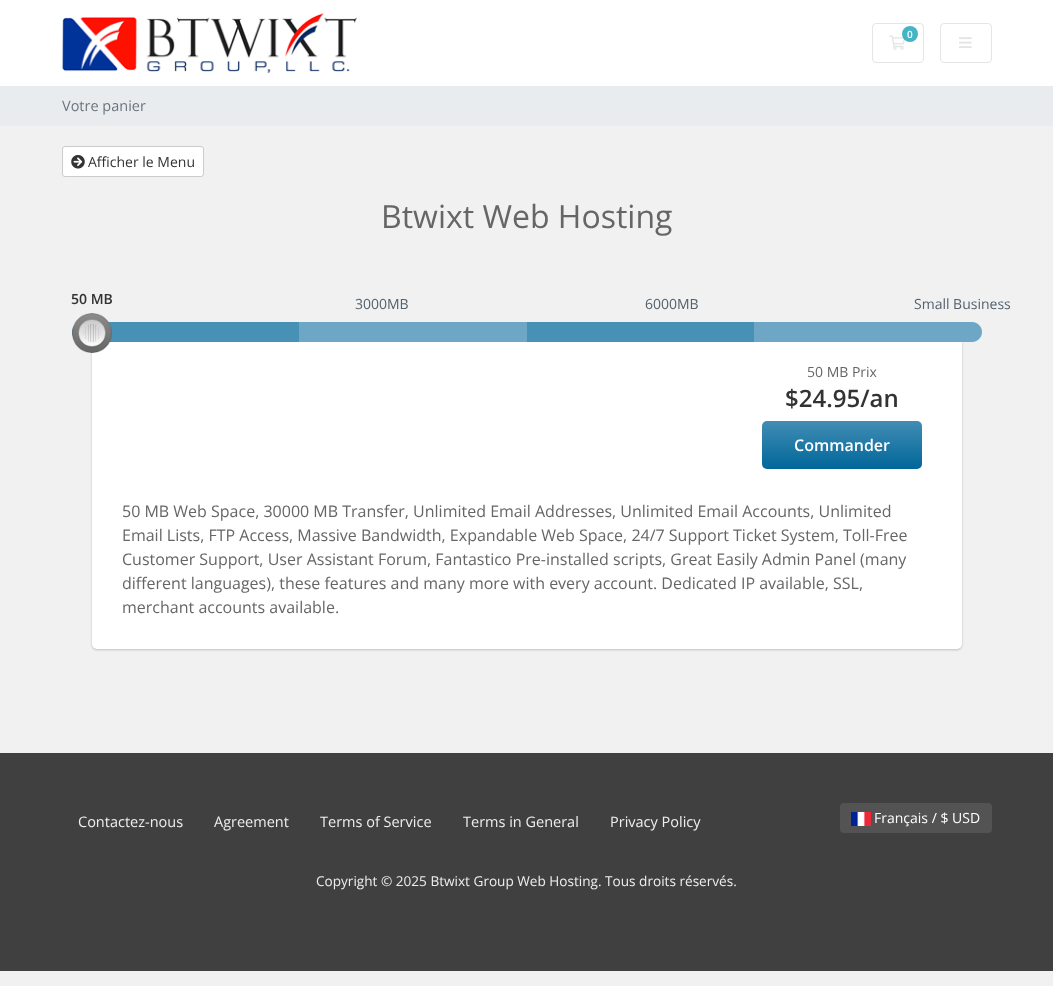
<svg xmlns="http://www.w3.org/2000/svg" width="1053" height="986">
	<defs>
		<linearGradient id="g1" gradientUnits="userSpaceOnUse" x1="842" y1="421" x2="842" y2="469"><stop offset="0" stop-color="#428DB4" /><stop offset="1" stop-color="#006699" /></linearGradient>
	</defs>
	<rect width="100%" height="100%" fill="#F1F1F1" />
	<rect x="0" y="0" width="1053" height="86" fill="#FFFFFF" />
	<image x="62" y="13" width="295" height="60" href="assets/img1.png" />
	<rect x="872.5" y="23.5" width="51" height="39" rx="3.5" fill="none" stroke="#E5E5E5" />
	<image x="889" y="35" width="16" height="15" href="assets/img2.png" />
	<circle cx="910" cy="34" r="8" fill="#17A2B8" fill-opacity="0.8" />
	<text x="907" y="38" font-family="Open Sans" font-size="10" font-weight="600" fill="#FFFFFF">0</text>
	<rect x="940.5" y="23.5" width="51" height="39" rx="3.5" fill="none" stroke="#E5E5E5" />
	<image x="959" y="37" width="13" height="11" href="assets/img3.png" />
	<rect x="0" y="86" width="1053" height="40" fill="#E9ECEF" />
	<text x="62" y="111" font-family="Open Sans" font-size="14.5" fill="#6C757D">Votre panier</text>
	<rect x="62.5" y="146.5" width="141" height="30" rx="2.5" fill="#FFFFFF" stroke="#CCCCCC" />
	<image x="71" y="155" width="14" height="14" href="assets/img4.png" />
	<text x="88" y="167" font-family="Open Sans" font-size="14" fill="#333333">Afficher le Menu</text>
	<text x="381" y="228" font-family="Open Sans" font-size="32" fill="#666666">Btwixt Web Hosting</text>
	<text x="71" y="304" font-family="Open Sans" font-size="14" font-weight="600" fill="#333333">50 MB</text>
	<rect x="92" y="340" width="870" height="310" rx="5" fill="#000000" fill-opacity="0.2" filter="blur(1px)" />
	<rect x="92" y="339" width="870" height="310" rx="5" fill="#FFFFFF" />
	<path d="M82 322H299V342H82C76.5 342 72 337.5 72 332C72 326.5 76.5 322 82 322Z" fill="#4891B6" />
	<rect x="299" y="322" width="228" height="20" fill="#6DA7C5" />
	<rect x="527" y="322" width="227" height="20" fill="#4891B6" />
	<path d="M754 322H972C977.5 322 982 326.5 982 332C982 337.5 977.5 342 972 342H754Z" fill="#6DA7C5" />
	<g font-family="Open Sans" font-size="14" fill="#53616C">
		<text x="355" y="309">3000MB</text>
		<text x="645" y="309">6000MB</text>
		<text x="914" y="309">Small Business</text>
	</g>
	<image x="72" y="313" width="40" height="40" href="assets/img5.png" />
	<text x="807" y="377" font-family="Open Sans" font-size="14" fill="#666666">50 MB Prix</text>
	<text x="785" y="407" font-family="Open Sans" font-size="24" font-weight="600" fill="#333333">$24.95/an</text>
	<rect x="762" y="421" width="160" height="48" rx="5" fill="url(#g1)" />
	<text x="794" y="451" font-family="Open Sans" font-size="16" font-weight="600" fill="#FFFFFF">Commander</text>
	<g font-family="Open Sans" font-size="16" fill="#666666">
		<text x="122" y="517">50 MB Web Space, 30000 MB Transfer, Unlimited Email Addresses, Unlimited Email Accounts, Unlimited</text>
		<text x="122" y="541">Email Lists, FTP Access, Massive Bandwidth, Expandable Web Space, 24/7 Support Ticket System, Toll-Free</text>
		<text x="122" y="565">Customer Support, User Assistant Forum, Fantastico Pre-installed scripts, Great Easily Admin Panel (many</text>
		<text x="122" y="589">different languages), these features and many more with every account. Dedicated IP available, SSL,</text>
		<text x="122" y="613">merchant accounts available.</text>
	</g>
	<rect x="0" y="753" width="1053" height="218" fill="#404040" />
	<g font-family="Open Sans" font-size="14.5" fill="#EEEEEE">
		<text x="78" y="827">Contactez-nous</text>
		<text x="214" y="827">Agreement</text>
		<text x="320" y="827">Terms of Service</text>
		<text x="463" y="827">Terms in General</text>
		<text x="610" y="827">Privacy Policy</text>
	</g>
	<rect x="840" y="803" width="152" height="30" rx="4" fill="#535353" />
	<rect x="851" y="812" width="20" height="14" fill="#888888" filter="blur(0.5px)" />
	<image x="851" y="812" width="20" height="14" href="assets/img6.png" />
	<text x="874" y="823" font-family="Open Sans" font-size="14" fill="#FFFFFF">Français / $ USD</text>
	<text x="316" y="886" font-family="Open Sans" font-size="13.6" fill="#EEEEEE">Copyright © 2025 Btwixt Group Web Hosting. Tous droits réservés.</text>
</svg>
